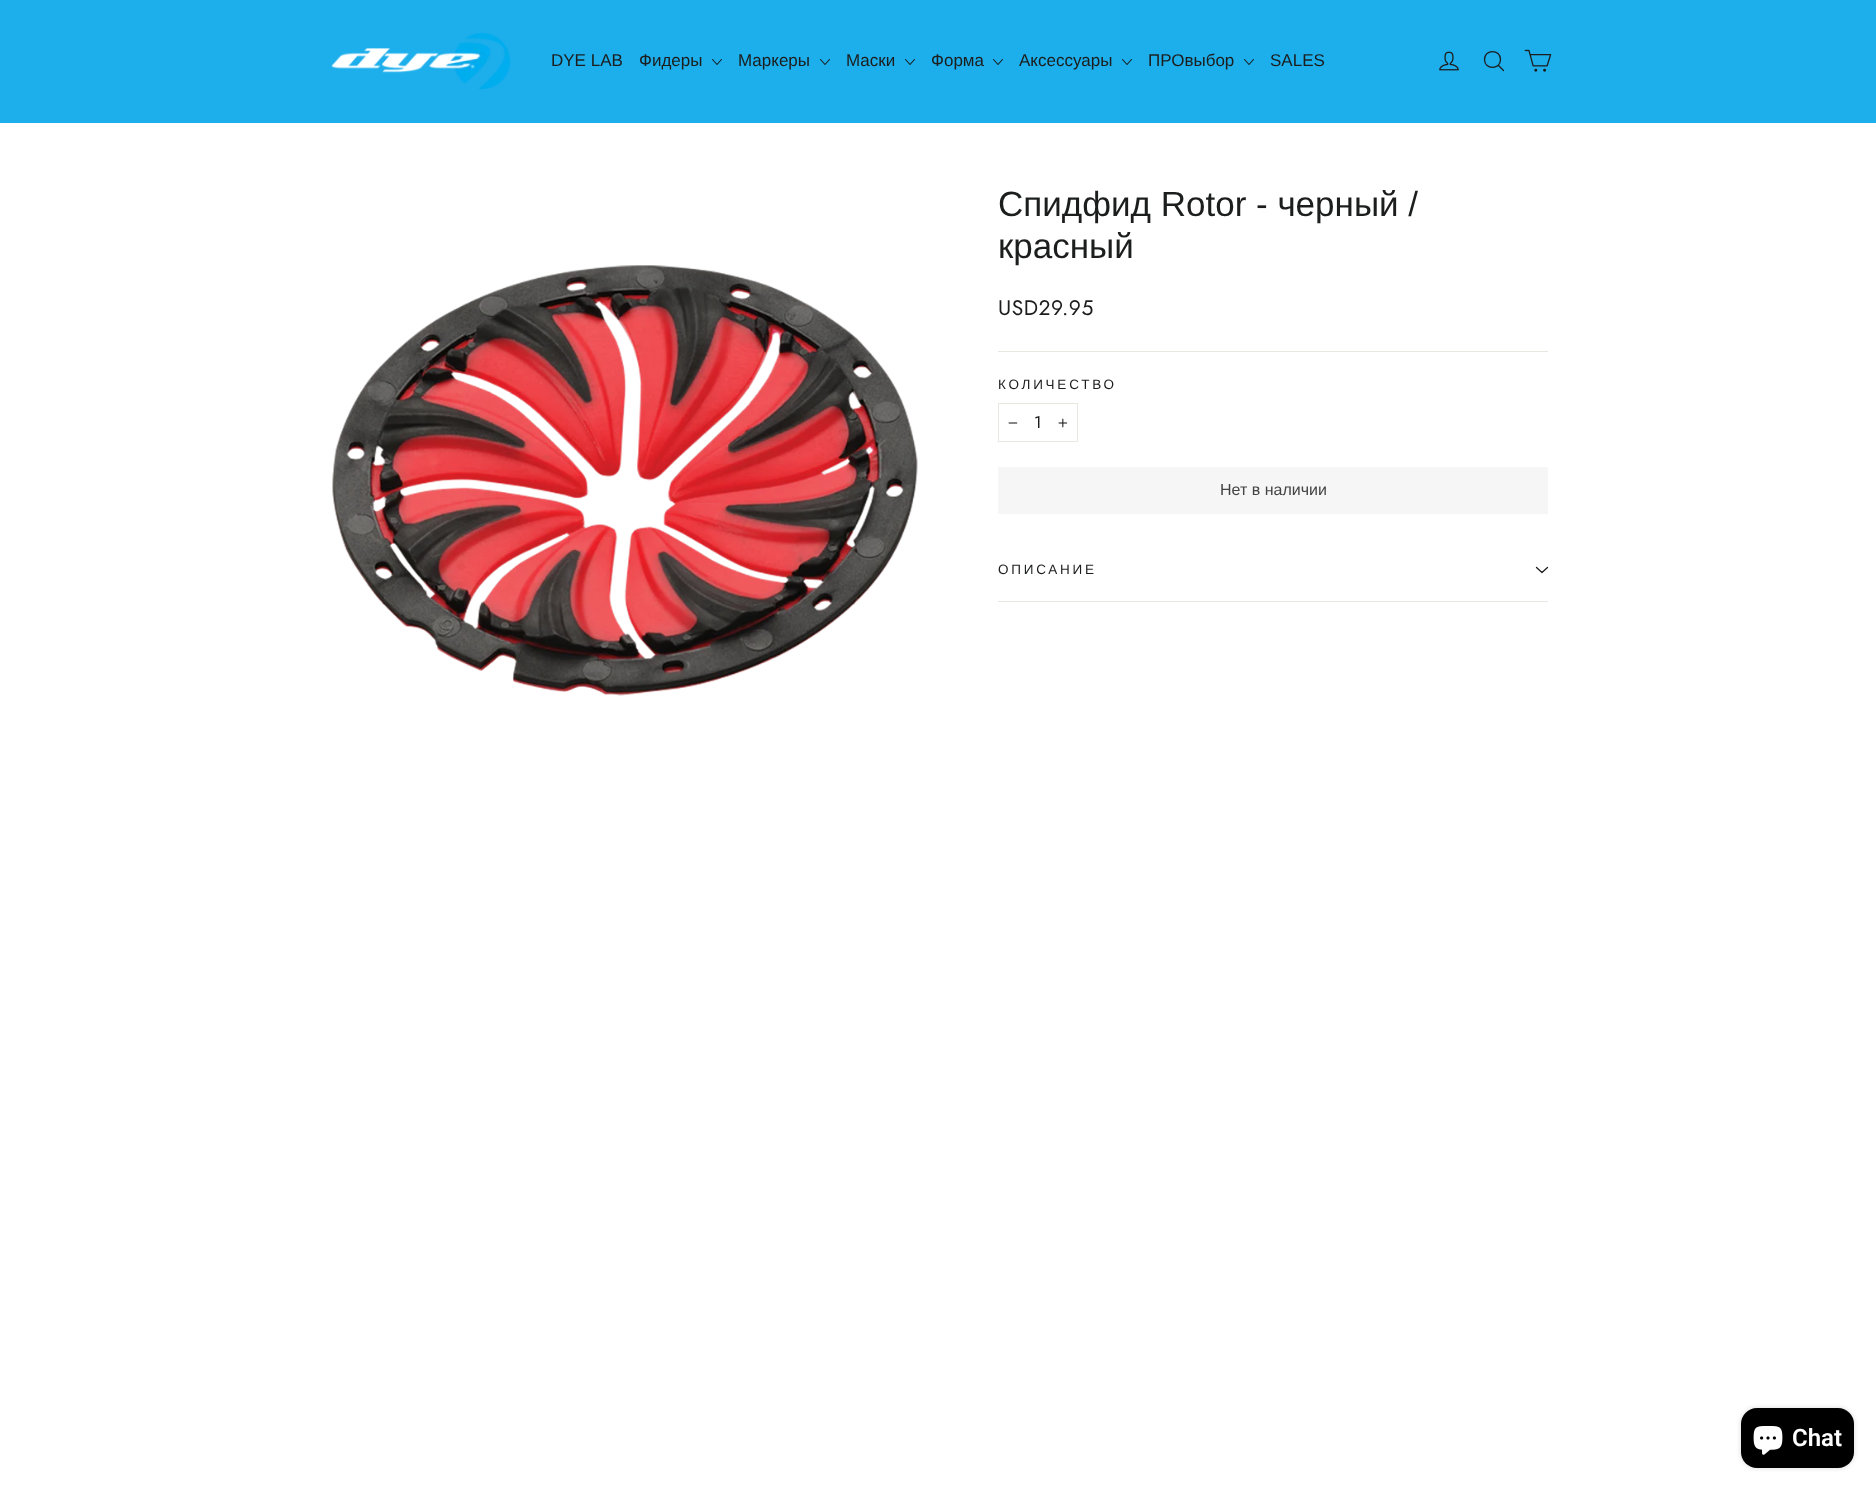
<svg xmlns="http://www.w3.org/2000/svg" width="1876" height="1489">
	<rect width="100%" height="100%" fill="#FFFFFF" />
	<rect x="0" y="0" width="1876" height="123" fill="#1DAFEC" />
	<image x="331" y="33" width="180" height="56" href="assets/img1.png" />
	<g font-family="Liberation Sans" font-size="17" fill="#1C1D1D">
		<text x="551" y="66">DYE LAB</text>
		<text x="639" y="66">Фидеры</text>
	</g>
	<path d="M712.5 59.5L717 64.5L721.5 59.5" fill="none" stroke="#1C1D1D" stroke-width="1.1" stroke-linecap="round" stroke-linejoin="round" />
	<text x="738" y="66" font-family="Liberation Sans" font-size="17" fill="#1C1D1D">Маркеры</text>
	<path d="M820.5 59.5L825 64.5L829.5 59.5" fill="none" stroke="#1C1D1D" stroke-width="1.1" stroke-linecap="round" stroke-linejoin="round" />
	<text x="846" y="66" font-family="Liberation Sans" font-size="17" fill="#1C1D1D">Маски</text>
	<path d="M905.5 59.5L910 64.5L914.5 59.5" fill="none" stroke="#1C1D1D" stroke-width="1.1" stroke-linecap="round" stroke-linejoin="round" />
	<text x="931" y="66" font-family="Liberation Sans" font-size="17" fill="#1C1D1D">Форма</text>
	<path d="M993.5 59.5L998 64.5L1002.5 59.5" fill="none" stroke="#1C1D1D" stroke-width="1.1" stroke-linecap="round" stroke-linejoin="round" />
	<text x="1019" y="66" font-family="Liberation Sans" font-size="17" fill="#1C1D1D">Аксессуары</text>
	<path d="M1122.5 59.5L1127 64.5L1131.5 59.5" fill="none" stroke="#1C1D1D" stroke-width="1.1" stroke-linecap="round" stroke-linejoin="round" />
	<text x="1148" y="66" font-family="Liberation Sans" font-size="17" fill="#1C1D1D">ПРОвыбор</text>
	<path d="M1244.5 59.5L1249 64.5L1253.5 59.5" fill="none" stroke="#1C1D1D" stroke-width="1.1" stroke-linecap="round" stroke-linejoin="round" />
	<text x="1270" y="66" font-family="Liberation Sans" font-size="17" fill="#1C1D1D">SALES</text>
	<image x="1439" y="51" width="20" height="20" href="assets/img2.png" />
	<path d="M1500.5 59.5C1500.5 70 1484.5 70 1484.5 59.5C1484.5 49 1500.5 49 1500.5 59.5ZM1503.5 70.5L1498.5 65.5" fill="none" stroke="#1C1D1D" stroke-width="1.3" stroke-linecap="round" stroke-linejoin="round" />
	<image x="1524" y="49" width="28" height="23" href="assets/img3.png" />
	<image x="332" y="265" width="586" height="431" href="assets/img4.png" />
	<g font-family="Liberation Sans" font-size="35" fill="#1C1D1D">
		<text x="998" y="216">Спидфид Rotor - черный /</text>
		<text x="998" y="258">красный</text>
	</g>
	<text x="998" y="315" font-family="Jost" font-size="21" letter-spacing="0.5" fill="#1C1D1D">USD29.95</text>
	<rect x="998" y="351" width="550" height="1" fill="#E8E8E1" />
	<text x="998" y="389" font-family="Liberation Sans" font-size="13.5" letter-spacing="2.75" fill="#1C1D1D">КОЛИЧЕСТВО</text>
	<rect x="998.5" y="403.5" width="79" height="38" fill="none" stroke="#E8E8E1" />
	<image x="1008" y="422" width="10" height="2" href="assets/img5.png" />
	<text x="1034" y="428" font-family="Jost" font-size="17" letter-spacing="0.5" fill="#1C1D1D">1</text>
	<image x="1058" y="418" width="10" height="10" href="assets/img6.png" />
	<rect x="998" y="467" width="550" height="47" fill="#F6F6F6" />
	<text x="1220" y="495" font-family="Liberation Sans" font-size="16" fill="#444444">Нет в наличии</text>
	<rect x="998" y="601" width="550" height="1" fill="#E8E8E1" />
	<text x="998" y="574" font-family="Liberation Sans" font-size="13.5" letter-spacing="2.75" fill="#1C1D1D">ОПИСАНИЕ</text>
	<path d="M1536.5 567.5L1542 572.5L1547.5 567.5" fill="none" stroke="#1C1D1D" stroke-width="1.3" stroke-linecap="round" stroke-linejoin="round" />
	<rect x="1741" y="1408" width="113" height="60" rx="16" fill="#000000" fill-opacity="0.15" filter="blur(2.5px)" />
	<rect x="1741" y="1408" width="113" height="60" rx="16" fill="#000000" />
	<image x="1753" y="1426" width="30" height="29" href="assets/img7.png" />
	<text x="1792" y="1446" font-family="Roboto" font-size="24" font-weight="600" fill="#FFFFFF">Chat</text>
</svg>
